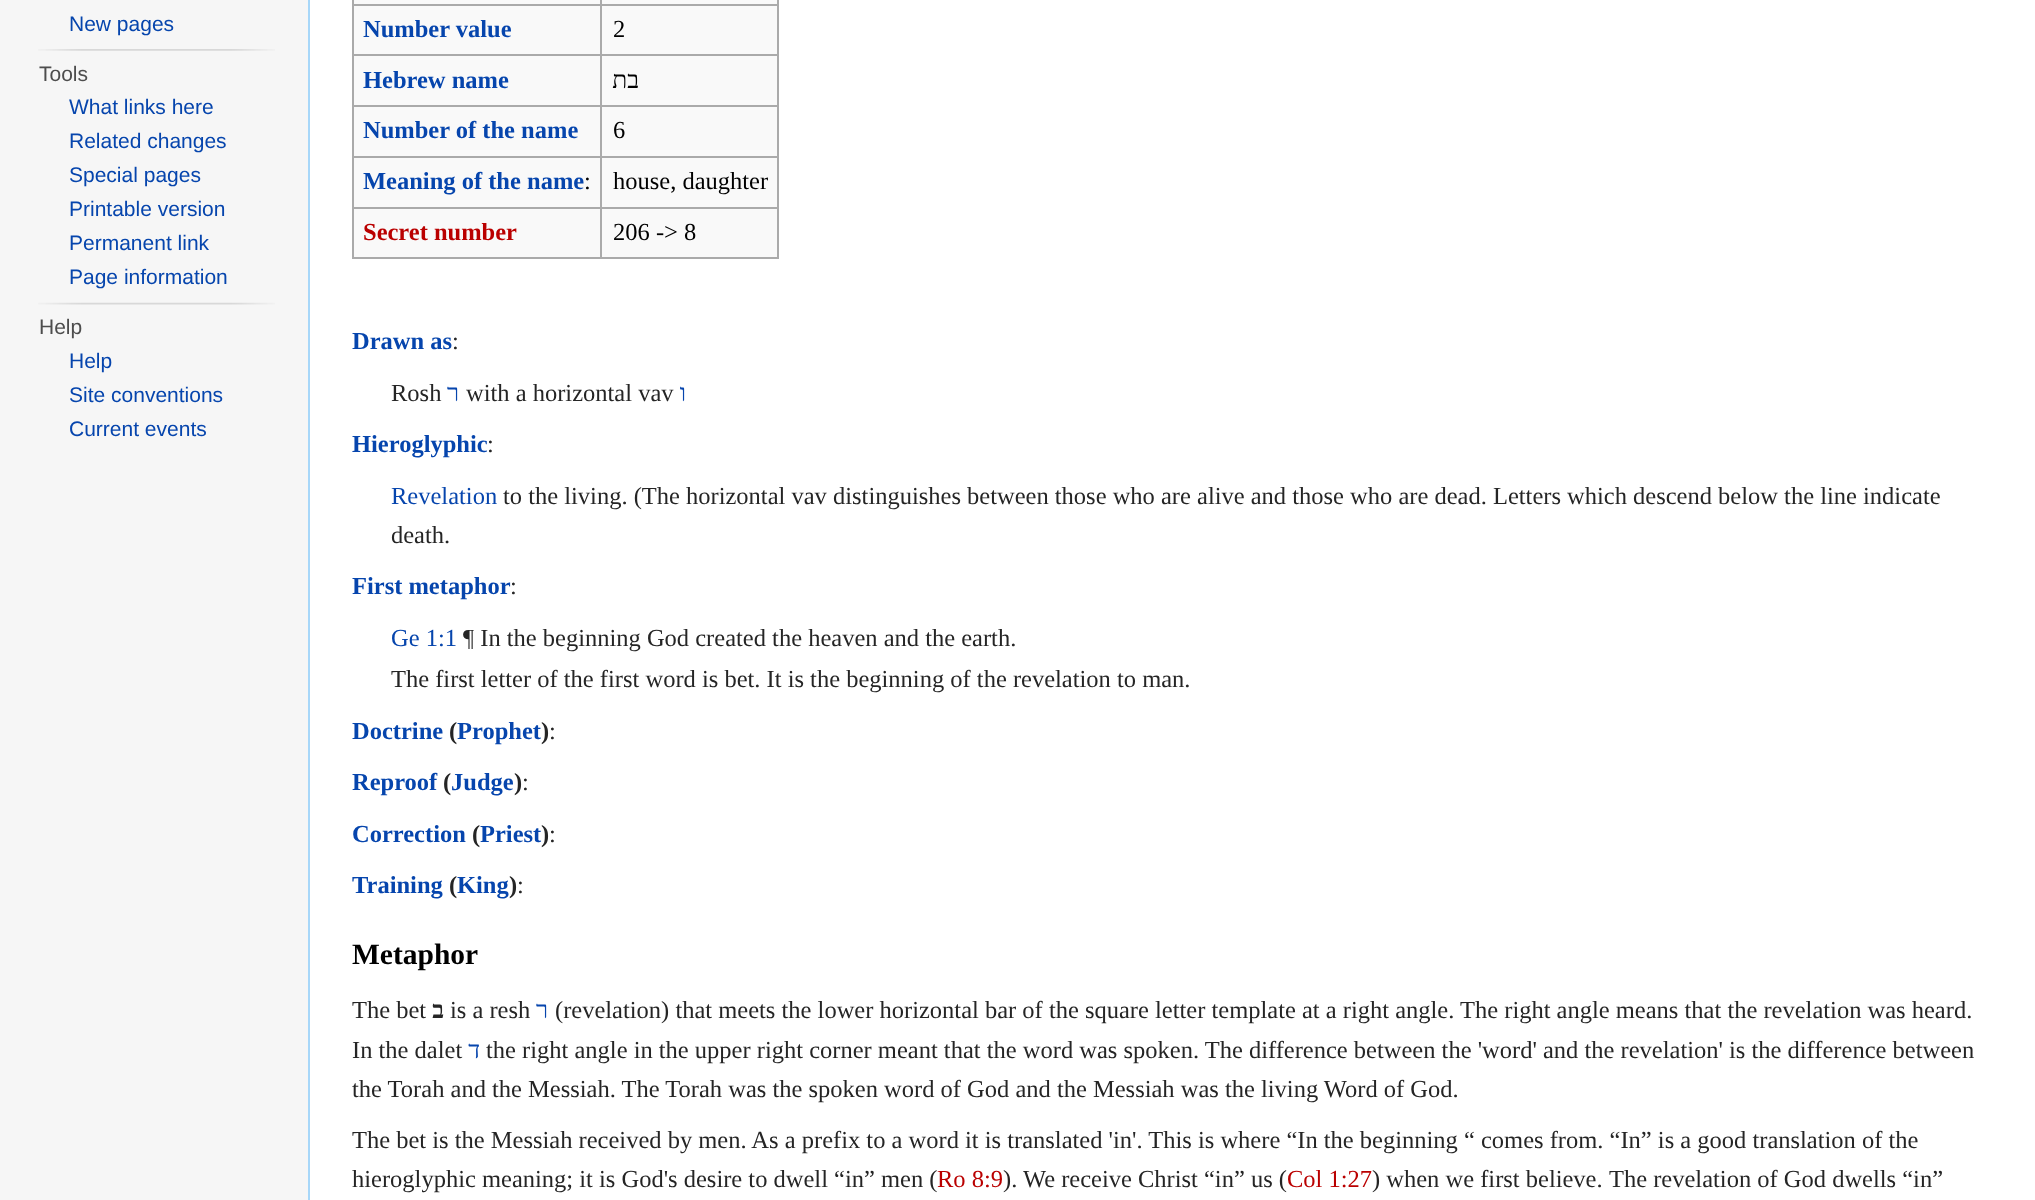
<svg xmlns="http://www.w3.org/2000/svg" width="2035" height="1200">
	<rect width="100%" height="100%" fill="#F6F6F6" />
	<text x="69" y="31" font-family="Liberation Sans" font-size="21" fill="#0645AD">New pages</text>
	<image x="38" y="49" width="237" height="2" href="assets/img1.png" />
	<text x="39" y="81" font-family="Liberation Sans" font-size="21" fill="#4D4D4D">Tools</text>
	<g font-family="Liberation Sans" font-size="21" fill="#0645AD">
		<text x="69" y="114">What links here</text>
		<text x="69" y="148">Related changes</text>
		<text x="69" y="182">Special pages</text>
		<text x="69" y="216">Printable version</text>
		<text x="69" y="250">Permanent link</text>
		<text x="69" y="284">Page information</text>
	</g>
	<image x="38" y="302" width="237" height="3" href="assets/img2.png" />
	<text x="39" y="334" font-family="Liberation Sans" font-size="21" fill="#4D4D4D">Help</text>
	<g font-family="Liberation Sans" font-size="21" fill="#0645AD">
		<text x="69" y="368">Help</text>
		<text x="69" y="402">Site conventions</text>
		<text x="69" y="436">Current events</text>
	</g>
	<rect x="310" y="0" width="1725" height="1200" fill="#FFFFFF" />
	<rect x="308" y="0" width="2" height="1200" fill="#A7D7F9" />
	<rect x="354" y="0" width="423" height="257" fill="#F9F9F9" />
	<rect x="777" y="0" width="2" height="259" fill="#AAAAAA" />
	<rect x="352" y="257" width="427" height="2" fill="#AAAAAA" />
	<rect x="352" y="0" width="2" height="259" fill="#AAAAAA" />
	<rect x="600" y="4" width="179" height="2" fill="#AAAAAA" />
	<rect x="600" y="54" width="179" height="2" fill="#AAAAAA" />
	<rect x="600" y="105" width="179" height="2" fill="#AAAAAA" />
	<rect x="600" y="156" width="179" height="2" fill="#AAAAAA" />
	<rect x="600" y="207" width="179" height="2" fill="#AAAAAA" />
	<rect x="600" y="207" width="2" height="52" fill="#AAAAAA" />
	<rect x="352" y="207" width="250" height="2" fill="#AAAAAA" />
	<rect x="600" y="156" width="2" height="52" fill="#AAAAAA" />
	<rect x="352" y="156" width="250" height="2" fill="#AAAAAA" />
	<rect x="600" y="105" width="2" height="53" fill="#AAAAAA" />
	<rect x="352" y="105" width="250" height="2" fill="#AAAAAA" />
	<rect x="600" y="54" width="2" height="53" fill="#AAAAAA" />
	<rect x="352" y="54" width="250" height="2" fill="#AAAAAA" />
	<rect x="600" y="4" width="2" height="52" fill="#AAAAAA" />
	<rect x="352" y="4" width="250" height="2" fill="#AAAAAA" />
	<rect x="600" y="0" width="2" height="5" fill="#AAAAAA" />
	<text x="363" y="37" font-family="Liberation Serif" font-size="24.5" font-weight="700" fill="#0645AD">Number value</text>
	<text x="613" y="37" font-family="Liberation Serif" font-size="24.5" fill="#000000">2</text>
	<text x="363" y="88" font-family="Liberation Serif" font-size="24.5" font-weight="700" fill="#0645AD">Hebrew name</text>
	<text x="639" y="88" font-family="Liberation Serif" font-size="24.5" direction="rtl" fill="#000000">בת</text>
	<text x="363" y="138" font-family="Liberation Serif" font-size="24.5" font-weight="700" fill="#0645AD">Number of the name</text>
	<text x="613" y="138" font-family="Liberation Serif" font-size="24.5" fill="#000000">6</text>
	<text x="363" y="189" font-family="Liberation Serif" font-size="24.5" font-weight="700" fill="#0645AD">Meaning of the name</text>
	<g font-family="Liberation Serif" font-size="24.5" fill="#000000">
		<text x="584" y="189">:</text>
		<text x="613" y="189">house, daughter</text>
	</g>
	<text x="363" y="240" font-family="Liberation Serif" font-size="24.5" font-weight="700" fill="#BA0000">Secret number</text>
	<text x="613" y="240" font-family="Liberation Serif" font-size="24.5" fill="#000000">206 -&gt; 8</text>
	<text x="352" y="349" font-family="Liberation Serif" font-size="24.5" font-weight="700" fill="#0645AD">Drawn as</text>
	<g font-family="Liberation Serif" font-size="24.5" fill="#252525">
		<text x="452" y="349">:</text>
		<text x="391" y="401">Rosh</text>
	</g>
	<text x="459" y="401" font-family="Liberation Serif" font-size="24.5" direction="rtl" fill="#0645AD">ר</text>
	<text x="466" y="401" font-family="Liberation Serif" font-size="24.5" fill="#252525">with a horizontal vav</text>
	<text x="686" y="401" font-family="Liberation Serif" font-size="24.5" direction="rtl" fill="#0645AD">ו</text>
	<text x="352" y="452" font-family="Liberation Serif" font-size="24.5" font-weight="700" fill="#0645AD">Hieroglyphic</text>
	<text x="487" y="452" font-family="Liberation Serif" font-size="24.5" fill="#252525">:</text>
	<text x="391" y="504" font-family="Liberation Serif" font-size="24.5" fill="#0645AD">Revelation</text>
	<g font-family="Liberation Serif" font-size="24.5" fill="#252525">
		<text x="503" y="504">to the living. (The horizontal vav distinguishes between those who are alive and those who are dead. Letters which descend below the line indicate</text>
		<text x="391" y="543">death.</text>
	</g>
	<text x="352" y="594" font-family="Liberation Serif" font-size="24.5" font-weight="700" fill="#0645AD">First metaphor</text>
	<text x="510" y="594" font-family="Liberation Serif" font-size="24.5" fill="#252525">:</text>
	<text x="391" y="646" font-family="Liberation Serif" font-size="24.5" fill="#0645AD">Ge 1:1</text>
	<g font-family="Liberation Serif" font-size="24.5" fill="#252525">
		<text x="463" y="646">¶ In the beginning God created the heaven and the earth.</text>
		<text x="391" y="687">The first letter of the first word is bet. It is the beginning of the revelation to man.</text>
	</g>
	<text x="352" y="739" font-family="Liberation Serif" font-size="24.5" font-weight="700" fill="#0645AD">Doctrine</text>
	<text x="449" y="739" font-family="Liberation Serif" font-size="24.5" font-weight="700" fill="#252525">(</text>
	<text x="457" y="739" font-family="Liberation Serif" font-size="24.5" font-weight="700" fill="#0645AD">Prophet</text>
	<text x="541" y="739" font-family="Liberation Serif" font-size="24.5" font-weight="700" fill="#252525">)</text>
	<text x="549" y="739" font-family="Liberation Serif" font-size="24.5" fill="#252525">:</text>
	<text x="352" y="790" font-family="Liberation Serif" font-size="24.5" font-weight="700" fill="#0645AD">Reproof</text>
	<text x="443" y="790" font-family="Liberation Serif" font-size="24.5" font-weight="700" fill="#252525">(</text>
	<text x="451" y="790" font-family="Liberation Serif" font-size="24.5" font-weight="700" fill="#0645AD">Judge</text>
	<text x="514" y="790" font-family="Liberation Serif" font-size="24.5" font-weight="700" fill="#252525">)</text>
	<text x="522" y="790" font-family="Liberation Serif" font-size="24.5" fill="#252525">:</text>
	<text x="352" y="842" font-family="Liberation Serif" font-size="24.5" font-weight="700" fill="#0645AD">Correction</text>
	<text x="472" y="842" font-family="Liberation Serif" font-size="24.5" font-weight="700" fill="#252525">(</text>
	<text x="480" y="842" font-family="Liberation Serif" font-size="24.5" font-weight="700" fill="#0645AD">Priest</text>
	<text x="541" y="842" font-family="Liberation Serif" font-size="24.5" font-weight="700" fill="#252525">)</text>
	<text x="549" y="842" font-family="Liberation Serif" font-size="24.5" fill="#252525">:</text>
	<text x="352" y="893" font-family="Liberation Serif" font-size="24.5" font-weight="700" fill="#0645AD">Training</text>
	<text x="449" y="893" font-family="Liberation Serif" font-size="24.5" font-weight="700" fill="#252525">(</text>
	<text x="457" y="893" font-family="Liberation Serif" font-size="24.5" font-weight="700" fill="#0645AD">King</text>
	<text x="509" y="893" font-family="Liberation Serif" font-size="24.5" font-weight="700" fill="#252525">)</text>
	<text x="517" y="893" font-family="Liberation Serif" font-size="24.5" fill="#252525">:</text>
	<text x="352" y="964" font-family="Liberation Serif" font-size="29.5" font-weight="700" fill="#000000">Metaphor</text>
	<text x="352" y="1018" font-family="Liberation Serif" font-size="24.5" fill="#252525">The bet</text>
	<text x="444" y="1018" font-family="Liberation Serif" font-size="24.5" font-weight="700" direction="rtl" fill="#252525">ב</text>
	<text x="450" y="1018" font-family="Liberation Serif" font-size="24.5" fill="#252525">is a resh</text>
	<text x="548" y="1018" font-family="Liberation Serif" font-size="24.5" direction="rtl" fill="#0645AD">ר</text>
	<g font-family="Liberation Serif" font-size="24.5" fill="#252525">
		<text x="555" y="1018">(revelation) that meets the lower horizontal bar of the square letter template at a right angle. The right angle means that the revelation was heard.</text>
		<text x="352" y="1058">In the dalet</text>
	</g>
	<text x="480" y="1058" font-family="Liberation Serif" font-size="24.5" direction="rtl" fill="#0645AD">ד</text>
	<g font-family="Liberation Serif" font-size="24.5" fill="#252525">
		<text x="486" y="1058">the right angle in the upper right corner meant that the word was spoken. The difference between the 'word' and the revelation' is the difference between</text>
		<text x="352" y="1097">the Torah and the Messiah. The Torah was the spoken word of God and the Messiah was the living Word of God.</text>
		<text x="352" y="1148">The bet is the Messiah received by men. As a prefix to a word it is translated 'in'. This is where “In the beginning “ comes from. “In” is a good translation of the</text>
		<text x="352" y="1187">hieroglyphic meaning; it is God's desire to dwell “in” men (</text>
	</g>
	<text x="937" y="1187" font-family="Liberation Serif" font-size="24.5" fill="#BA0000">Ro 8:9</text>
	<text x="1003" y="1187" font-family="Liberation Serif" font-size="24.5" fill="#252525">). We receive Christ “in” us (</text>
	<text x="1287" y="1187" font-family="Liberation Serif" font-size="24.5" fill="#BA0000">Col 1:27</text>
	<g font-family="Liberation Serif" font-size="24.5" fill="#252525">
		<text x="1372" y="1187">) when we first believe.</text>
		<text x="1609" y="1187">The revelation of God dwells “in”</text>
	</g>
</svg>
